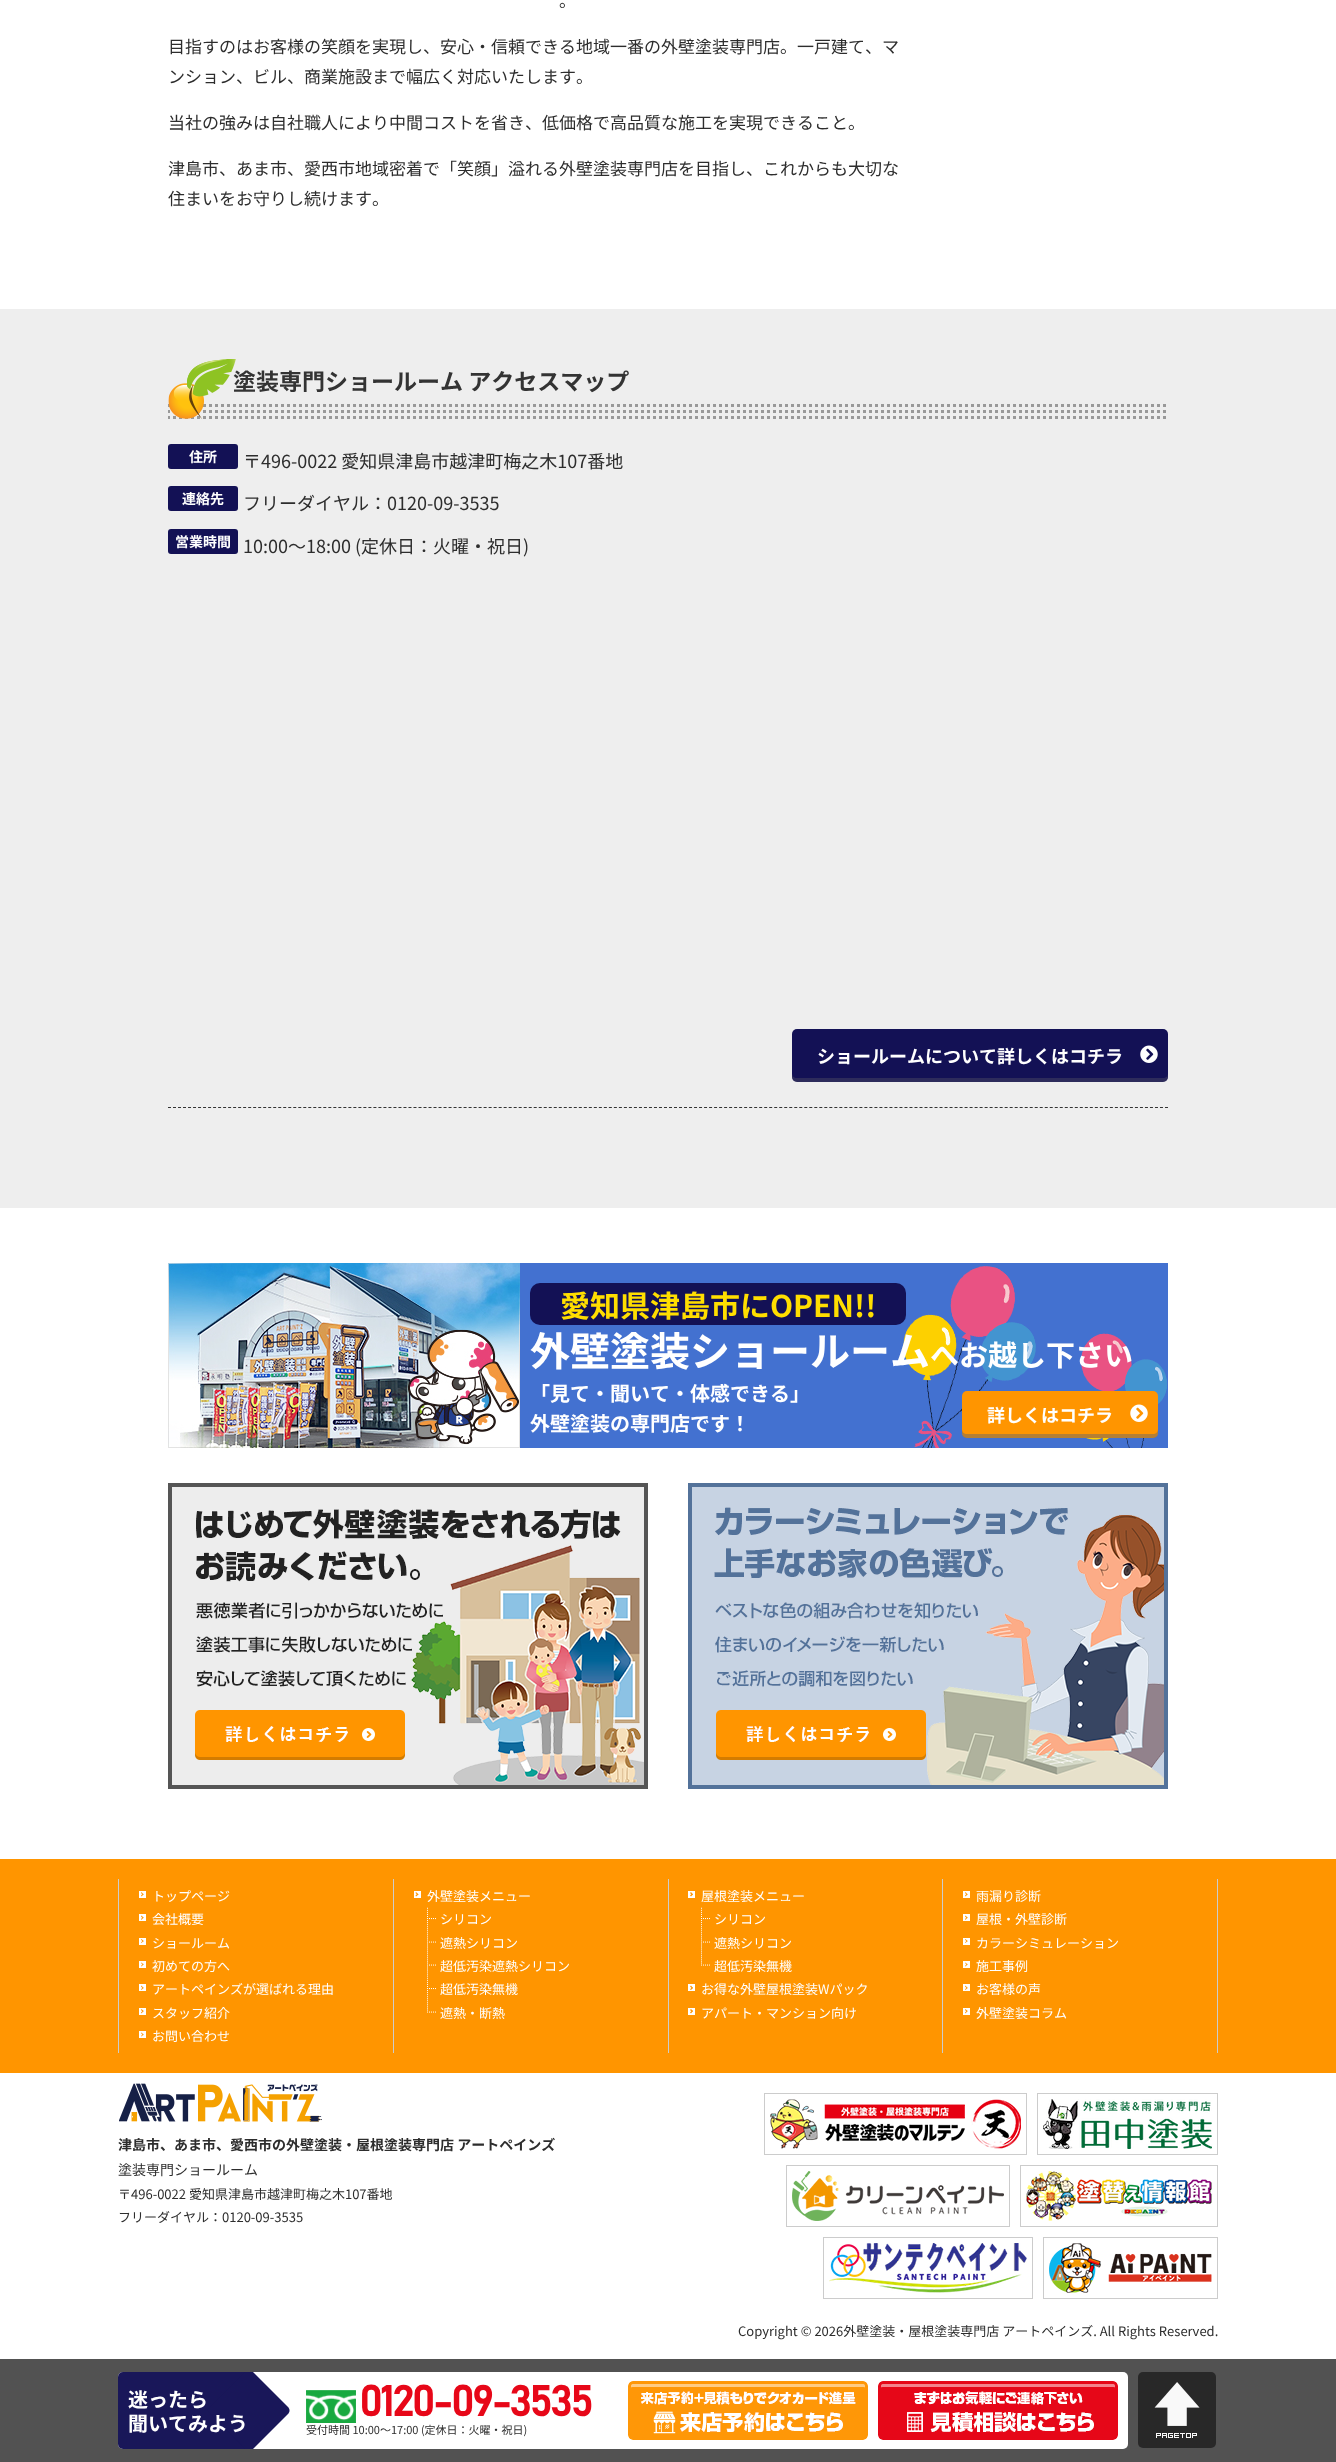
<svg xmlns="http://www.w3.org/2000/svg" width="1336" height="2462">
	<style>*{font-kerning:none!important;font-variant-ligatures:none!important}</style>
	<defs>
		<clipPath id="clip1"><rect x="118" y="2372" width="1010" height="77" rx="5" /></clipPath>
	</defs>
	<rect width="100%" height="100%" fill="#FFFFFF" />
	<g font-family="Noto Sans JP" font-size="17" fill="#2D2D2D">
		<text x="559" y="7">。</text>
		<text x="168" y="53">目指すのはお客様の笑顔を実現し、安心・信頼できる地域一番の外壁塗装専門店。一戸建て、マ</text>
		<text x="168" y="83">ンション、ビル、商業施設まで幅広く対応いたします。</text>
		<text x="168" y="129">当社の強みは自社職人により中間コストを省き、低価格で高品質な施工を実現できること。</text>
		<text x="168" y="175">津島市、あま市、愛西市地域密着で「笑顔」溢れる外壁塗装専門店を目指し、これからも大切な</text>
		<text x="168" y="205">住まいをお守りし続けます。</text>
	</g>
	<rect x="0" y="309" width="1336" height="899" fill="#EEEEEE" />
	<image x="168" y="359" width="998" height="60" href="assets/img1.png" />
	<text x="233" y="390" font-family="Noto Sans JP" font-size="23" font-weight="700" fill="#333333">塗装専門ショールーム アクセスマップ</text>
	<path d="M168 1107.5H1168" fill="none" stroke="#333333" stroke-dasharray="3 2.01" />
	<rect x="168" y="444" width="70" height="25" rx="3" fill="#131155" />
	<text x="189" y="462" font-family="Noto Sans JP" font-size="14" font-weight="700" fill="#FFFFFF">住所</text>
	<text x="243" y="468" font-family="Noto Sans JP" font-size="18" fill="#2D2D2D">〒496-0022 愛知県津島市越津町梅之木107番地</text>
	<rect x="168" y="486" width="70" height="25" rx="3" fill="#131155" />
	<text x="182" y="504" font-family="Noto Sans JP" font-size="14" font-weight="700" fill="#FFFFFF">連絡先</text>
	<text x="243" y="510" font-family="Noto Sans JP" font-size="18" fill="#2D2D2D">フリーダイヤル：0120-09-3535</text>
	<rect x="168" y="529" width="70" height="25" rx="3" fill="#131155" />
	<text x="175" y="547" font-family="Noto Sans JP" font-size="14" font-weight="700" fill="#FFFFFF">営業時間</text>
	<text x="243" y="553" font-family="Noto Sans JP" font-size="18" fill="#2D2D2D">10:00～18:00 (定休日：火曜・祝日)</text>
	<rect x="792" y="1029" width="376" height="53" rx="5" fill="#131155" />
	<path d="M792 1073C792 1076 792 1081 796 1082H1164C1168 1081 1168 1076 1168 1073C1168 1076 1166 1078 1163 1078H797C794 1078 792 1076 792 1073Z" fill="#696969" fill-opacity="0.3" />
	<text x="817" y="1063" font-family="Noto Sans JP" font-size="18" font-weight="700" fill="#FFFFFF">ショールームについて詳しくはコチラ</text>
	<image x="1140" y="1045" width="18" height="18" href="assets/img2.png" />
	<rect x="520" y="1263" width="648" height="185" fill="#4371D0" />
	<image x="903" y="1266" width="265" height="182" href="assets/img3.png" />
	<image x="168" y="1263" width="352" height="185" href="assets/img4.png" />
	<rect x="530" y="1283" width="376" height="42" rx="10" fill="#131155" />
	<text x="560" y="1317" font-family="Noto Sans JP" font-size="30" font-weight="700" fill="#FFDE00">愛知県津島市にOPEN!!</text>
	<text x="530" y="1366" font-family="Noto Sans JP" font-size="40" font-weight="700" fill="#FFFFFF">外壁塗装ショールーム</text>
	<text x="930" y="1366" font-family="Noto Sans JP" font-size="29" font-weight="700" fill="#FFFFFF">へお越し下さい</text>
	<g font-family="Noto Sans JP" font-size="20" font-weight="700" fill="#FFFFFF">
		<text x="530" y="1401">「見て・聞いて・体感できる」</text>
		<text x="530" y="1431">外壁塗装の専門店です！</text>
	</g>
	<rect x="962" y="1391" width="196" height="47" rx="5" fill="#FF9500" />
	<path d="M962 1429V1433C962 1436 964 1438 967 1438H1153C1156 1438 1158 1436 1158 1433V1429C1158 1432 1156 1434 1153 1434H967C964 1434 962 1432 962 1429Z" fill="#696969" fill-opacity="0.5" />
	<text x="987" y="1422" font-family="Noto Sans JP" font-size="18" font-weight="700" fill="#FFFFFF">詳しくはコチラ</text>
	<image x="1130" y="1404" width="18" height="18" href="assets/img5.png" />
	<image x="168" y="1483" width="480" height="306" href="assets/img6.png" />
	<image x="688" y="1483" width="480" height="306" href="assets/img7.png" />
	<rect x="0" y="1859" width="1336" height="214" fill="#FF9500" />
	<rect x="118" y="1879" width="1" height="174" fill="#CCCCCC" />
	<rect x="393" y="1879" width="1" height="174" fill="#CCCCCC" />
	<rect x="139" y="1891" width="7" height="7" fill="#FFFFFF" />
	<text x="152" y="1901" font-family="Noto Sans JP" font-size="13" fill="#FFFFFF">トップページ</text>
	<path d="M141.5 1892L143.5 1894.5L143 1895L141 1893Z" fill="#FF9500" />
	<path d="M143 1893.5L143.5 1894.5L141.5 1896.5L141 1895.5Z" fill="#FF9500" />
	<rect x="139" y="1914" width="7" height="7" fill="#FFFFFF" />
	<text x="152" y="1924" font-family="Noto Sans JP" font-size="13" fill="#FFFFFF">会社概要</text>
	<path d="M141.5 1915.5L143.5 1917.5L143 1918.5L141 1916.5Z" fill="#FF9500" />
	<path d="M143 1917L143.5 1917.5L141.5 1920L141 1919Z" fill="#FF9500" />
	<rect x="139" y="1938" width="7" height="7" fill="#FFFFFF" />
	<text x="152" y="1948" font-family="Noto Sans JP" font-size="13" fill="#FFFFFF">ショールーム</text>
	<path d="M141.5 1939L143.5 1941L143 1942L141 1939.5Z" fill="#FF9500" />
	<path d="M143 1940.5L143.5 1941L141.5 1943L141 1942.5Z" fill="#FF9500" />
	<rect x="139" y="1961" width="7" height="7" fill="#FFFFFF" />
	<text x="152" y="1971" font-family="Noto Sans JP" font-size="13" fill="#FFFFFF">初めての方へ</text>
	<path d="M141.5 1962.5L143.5 1964.5L143 1965L141 1963Z" fill="#FF9500" />
	<path d="M143 1963.5L143.5 1964.5L141.5 1966.5L141 1966Z" fill="#FF9500" />
	<rect x="139" y="1984" width="7" height="7" fill="#FFFFFF" />
	<text x="152" y="1994" font-family="Noto Sans JP" font-size="13" fill="#FFFFFF">アートペインズが選ばれる理由</text>
	<path d="M141.5 1985.5L143.5 1988L143 1988.5L141 1986.5Z" fill="#FF9500" />
	<path d="M143 1987L143.5 1988L141.5 1990L141 1989.5Z" fill="#FF9500" />
	<rect x="139" y="2008" width="7" height="7" fill="#FFFFFF" />
	<text x="152" y="2018" font-family="Noto Sans JP" font-size="13" fill="#FFFFFF">スタッフ紹介</text>
	<path d="M141.5 2009L143.5 2011L143 2012L141 2010Z" fill="#FF9500" />
	<path d="M143 2010.5L143.5 2011L141.5 2013.5L141 2012.5Z" fill="#FF9500" />
	<rect x="139" y="2031" width="7" height="7" fill="#FFFFFF" />
	<text x="152" y="2041" font-family="Noto Sans JP" font-size="13" fill="#FFFFFF">お問い合わせ</text>
	<path d="M141.5 2032.5L143.5 2034.5L143 2035.5L141 2033Z" fill="#FF9500" />
	<path d="M143 2034L143.5 2034.5L141.5 2036.5L141 2036Z" fill="#FF9500" />
	<rect x="668" y="1879" width="1" height="174" fill="#CCCCCC" />
	<rect x="414" y="1891" width="7" height="7" fill="#FFFFFF" />
	<text x="427" y="1901" font-family="Noto Sans JP" font-size="13" fill="#FFFFFF">外壁塗装メニュー</text>
	<path d="M416 1892L418.5 1894.5L417.5 1895L415.5 1893Z" fill="#FF9500" />
	<path d="M417.5 1893.5L418.5 1894.5L416 1896.5L415.5 1895.5Z" fill="#FF9500" />
	<image x="427" y="1907" width="9" height="24" href="assets/img8.png" />
	<text x="440" y="1924" font-family="Noto Sans JP" font-size="13" fill="#FFFFFF">シリコン</text>
	<image x="427" y="1931" width="9" height="23" href="assets/img9.png" />
	<text x="440" y="1948" font-family="Noto Sans JP" font-size="13" fill="#FFFFFF">遮熱シリコン</text>
	<image x="427" y="1954" width="9" height="23" href="assets/img9.png" />
	<text x="440" y="1971" font-family="Noto Sans JP" font-size="13" fill="#FFFFFF">超低汚染遮熱シリコン</text>
	<image x="427" y="1977" width="9" height="24" href="assets/img8.png" />
	<text x="440" y="1994" font-family="Noto Sans JP" font-size="13" fill="#FFFFFF">超低汚染無機</text>
	<image x="427" y="2001" width="9" height="12" href="assets/img10.png" />
	<text x="440" y="2018" font-family="Noto Sans JP" font-size="13" fill="#FFFFFF">遮熱・断熱</text>
	<rect x="942" y="1879" width="1" height="174" fill="#CCCCCC" />
	<rect x="688" y="1891" width="7" height="7" fill="#FFFFFF" />
	<text x="701" y="1901" font-family="Noto Sans JP" font-size="13" fill="#FFFFFF">屋根塗装メニュー</text>
	<path d="M691 1892L693 1894.5L692 1895L690 1893Z" fill="#FF9500" />
	<path d="M692 1893.5L693 1894.5L691 1896.5L690 1895.5Z" fill="#FF9500" />
	<image x="701" y="1907" width="9" height="24" href="assets/img8.png" />
	<text x="714" y="1924" font-family="Noto Sans JP" font-size="13" fill="#FFFFFF">シリコン</text>
	<image x="701" y="1931" width="9" height="23" href="assets/img9.png" />
	<text x="714" y="1948" font-family="Noto Sans JP" font-size="13" fill="#FFFFFF">遮熱シリコン</text>
	<image x="701" y="1954" width="9" height="12" href="assets/img10.png" />
	<text x="714" y="1971" font-family="Noto Sans JP" font-size="13" fill="#FFFFFF">超低汚染無機</text>
	<rect x="688" y="1984" width="7" height="7" fill="#FFFFFF" />
	<text x="701" y="1994" font-family="Noto Sans JP" font-size="13" fill="#FFFFFF">お得な外壁屋根塗装Wパック</text>
	<path d="M691 1985.5L693 1988L692 1988.5L690 1986.5Z" fill="#FF9500" />
	<path d="M692 1987L693 1988L691 1990L690 1989.5Z" fill="#FF9500" />
	<rect x="688" y="2008" width="7" height="7" fill="#FFFFFF" />
	<text x="701" y="2018" font-family="Noto Sans JP" font-size="13" fill="#FFFFFF">アパート・マンション向け</text>
	<path d="M691 2009L693 2011L692 2012L690 2010Z" fill="#FF9500" />
	<path d="M692 2010.5L693 2011L691 2013.5L690 2012.5Z" fill="#FF9500" />
	<rect x="1217" y="1879" width="1" height="174" fill="#CCCCCC" />
	<rect x="963" y="1891" width="7" height="7" fill="#FFFFFF" />
	<text x="976" y="1901" font-family="Noto Sans JP" font-size="13" fill="#FFFFFF">雨漏り診断</text>
	<path d="M965.5 1892L967.5 1894.5L967 1895L965 1893Z" fill="#FF9500" />
	<path d="M967 1893.5L967.5 1894.5L965.5 1896.5L965 1895.5Z" fill="#FF9500" />
	<rect x="963" y="1914" width="7" height="7" fill="#FFFFFF" />
	<text x="976" y="1924" font-family="Noto Sans JP" font-size="13" fill="#FFFFFF">屋根・外壁診断</text>
	<path d="M965.5 1915.5L967.5 1917.5L967 1918.5L965 1916.5Z" fill="#FF9500" />
	<path d="M967 1917L967.5 1917.5L965.5 1920L965 1919Z" fill="#FF9500" />
	<rect x="963" y="1938" width="7" height="7" fill="#FFFFFF" />
	<text x="976" y="1948" font-family="Noto Sans JP" font-size="13" fill="#FFFFFF">カラーシミュレーション</text>
	<path d="M965.5 1939L967.5 1941L967 1942L965 1939.5Z" fill="#FF9500" />
	<path d="M967 1940.5L967.5 1941L965.5 1943L965 1942.5Z" fill="#FF9500" />
	<rect x="963" y="1961" width="7" height="7" fill="#FFFFFF" />
	<text x="976" y="1971" font-family="Noto Sans JP" font-size="13" fill="#FFFFFF">施工事例</text>
	<path d="M965.5 1962.5L967.5 1964.5L967 1965L965 1963Z" fill="#FF9500" />
	<path d="M967 1963.5L967.5 1964.5L965.5 1966.5L965 1966Z" fill="#FF9500" />
	<rect x="963" y="1984" width="7" height="7" fill="#FFFFFF" />
	<text x="976" y="1994" font-family="Noto Sans JP" font-size="13" fill="#FFFFFF">お客様の声</text>
	<path d="M965.5 1985.5L967.5 1988L967 1988.5L965 1986.5Z" fill="#FF9500" />
	<path d="M967 1987L967.5 1988L965.5 1990L965 1989.5Z" fill="#FF9500" />
	<rect x="963" y="2008" width="7" height="7" fill="#FFFFFF" />
	<text x="976" y="2018" font-family="Noto Sans JP" font-size="13" fill="#FFFFFF">外壁塗装コラム</text>
	<path d="M965.5 2009L967.5 2011L967 2012L965 2010Z" fill="#FF9500" />
	<path d="M967 2010.5L967.5 2011L965.5 2013.5L965 2012.5Z" fill="#FF9500" />
	<image x="119" y="2083" width="203" height="39" href="assets/img11.png" />
	<text x="118" y="2150" font-family="Noto Sans JP" font-size="14" font-weight="700" fill="#2D2D2D">津島市、あま市、愛西市の外壁塗装・屋根塗装専門店 アートペインズ</text>
	<text x="118" y="2175" font-family="Noto Sans JP" font-size="14" fill="#2D2D2D">塗装専門ショールーム</text>
	<g font-family="Noto Sans JP" font-size="13" fill="#2D2D2D">
		<text x="118" y="2199">〒496-0022 愛知県津島市越津町梅之木107番地</text>
		<text x="118" y="2222">フリーダイヤル：0120-09-3535</text>
	</g>
	<rect x="764.5" y="2093.5" width="262" height="61" fill="none" stroke="#CCCCCC" />
	<image x="770" y="2099" width="251" height="50" href="assets/img12.png" />
	<rect x="1037.5" y="2093.5" width="180" height="61" fill="none" stroke="#CCCCCC" />
	<image x="1043" y="2099" width="169" height="50" href="assets/img13.png" />
	<rect x="786.5" y="2165.5" width="223" height="61" fill="none" stroke="#CCCCCC" />
	<image x="792" y="2171" width="212" height="50" href="assets/img14.png" />
	<rect x="1020.5" y="2165.5" width="197" height="61" fill="none" stroke="#CCCCCC" />
	<image x="1026" y="2171" width="186" height="50" href="assets/img15.png" />
	<rect x="823.5" y="2237.5" width="209" height="61" fill="none" stroke="#CCCCCC" />
	<image x="829" y="2243" width="198" height="50" href="assets/img16.png" />
	<rect x="1043.5" y="2237.5" width="174" height="61" fill="none" stroke="#CCCCCC" />
	<image x="1049" y="2243" width="163" height="50" href="assets/img17.png" />
	<text x="738" y="2336" font-family="Noto Sans JP" font-size="13" fill="#2D2D2D">Copyright © 2026外壁塗装・屋根塗装専門店 アートペインズ. All Rights Reserved.</text>
	<rect x="0" y="2359" width="1336" height="103" fill="#525252" />
	<rect x="118" y="2372" width="1010" height="77" rx="5" fill="#FFFFFF" />
	<g clip-path="url(#clip1)">
		<rect x="118" y="2369" width="130" height="83" rx="5" fill="#191759" />
	</g>
	<text x="128" y="2407" font-family="Noto Sans JP" font-size="20" font-weight="700" fill="#FFFFFF">迷ったら</text>
	<path d="M207 2410L245 2449H253L288 2414C290 2412 290 2409 288 2407L253 2372H245Z" fill="#191759" />
	<text x="128" y="2431" font-family="Noto Sans JP" font-size="20" font-weight="700" fill="#FFFFFF">聞いてみよう</text>
	<image x="306" y="2390" width="50" height="33" href="assets/img18.png" />
	<text x="359" y="2416" font-family="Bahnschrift" font-size="42" font-weight="700" letter-spacing="-2.1" fill="#E70718">0120-09-3535</text>
	<text x="306" y="2434" font-family="Noto Sans JP" font-size="11" fill="#2D2D2D">受付時間 10:00～17:00 (定休日：火曜・祝日)</text>
	<image x="628" y="2381" width="240" height="59" href="assets/img19.png" />
	<image x="878" y="2381" width="240" height="59" href="assets/img20.png" />
	<rect x="1138" y="2372" width="78" height="76" rx="5" fill="#282828" />
	<image x="1154" y="2382" width="46" height="56" href="assets/img21.png" />
</svg>
